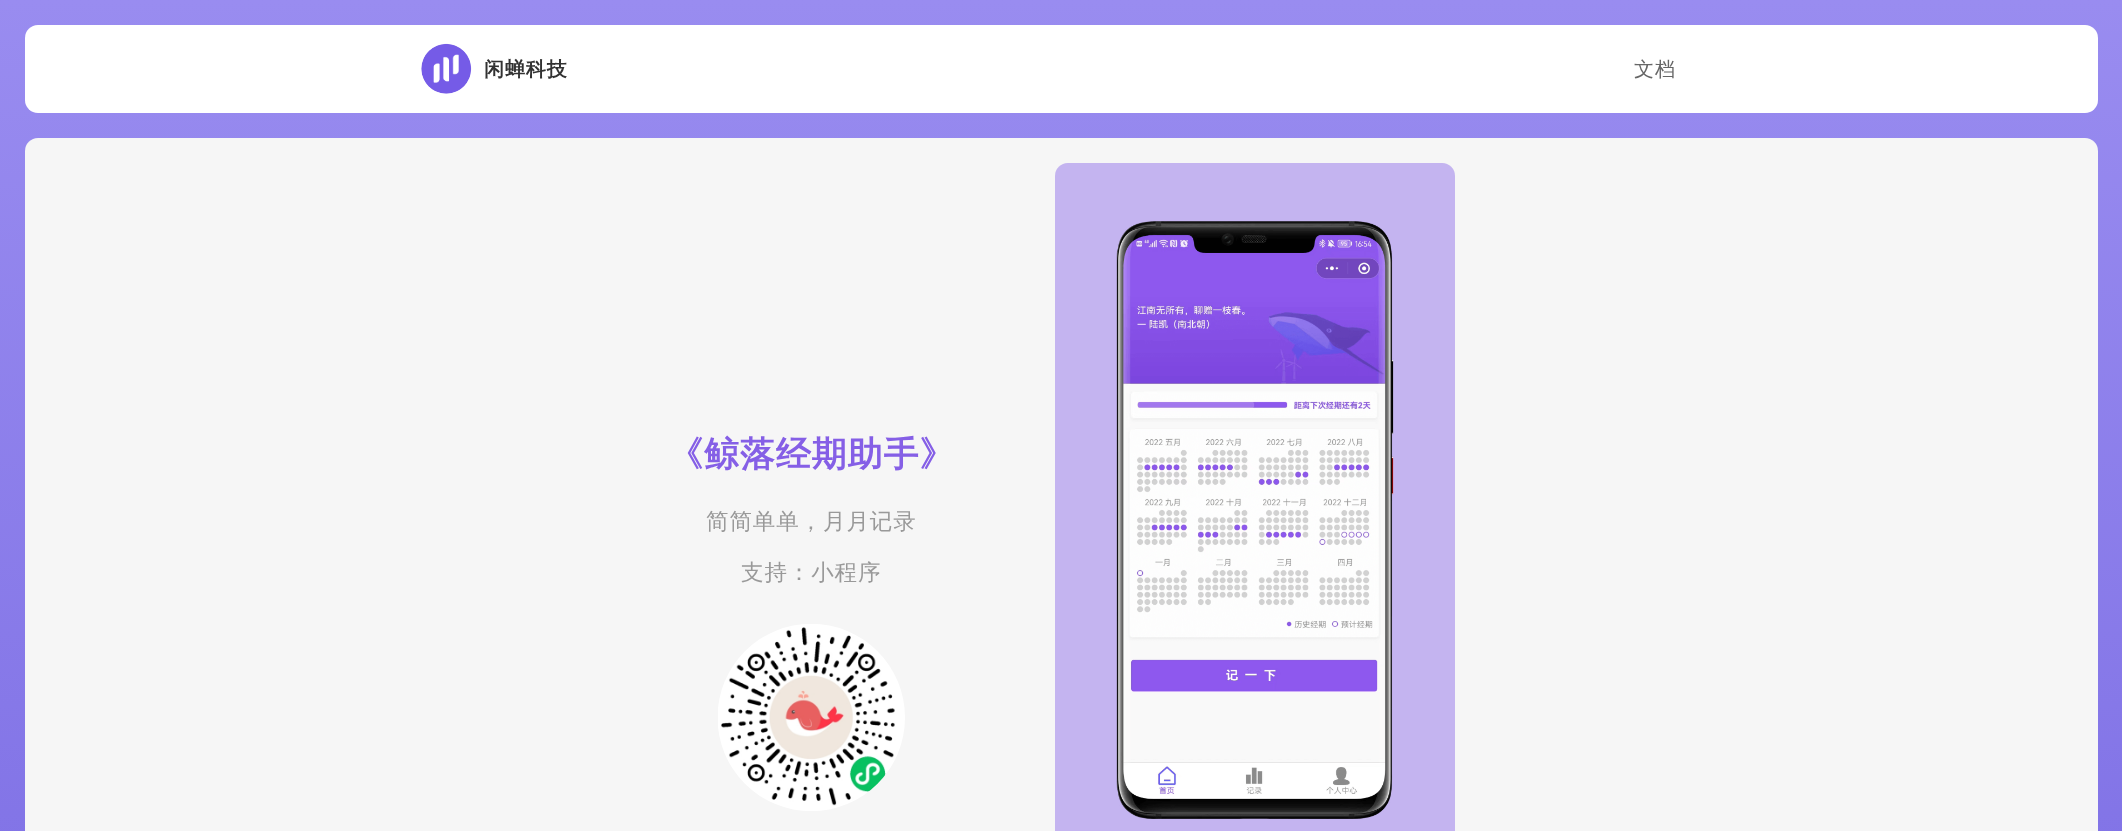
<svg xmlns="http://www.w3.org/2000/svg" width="2122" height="831">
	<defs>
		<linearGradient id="g1" gradientUnits="userSpaceOnUse" x1="1061" y1="0" x2="1061" y2="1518"><stop offset="0" stop-color="#998CF0" /><stop offset="1" stop-color="#7061DF" /></linearGradient>
	</defs>
	<rect width="100%" height="100%" fill="#FFFFFF" />
	<rect x="0" y="0" width="2122" height="831" fill="url(#g1)" />
	<rect x="25" y="25" width="2073" height="88" rx="13" fill="#FFFFFF" />
	<image x="421" y="43" width="51" height="51" href="assets/img1.png" />
	<text x="484" y="76" font-family="WenQuanYi Zen Hei" font-size="20" font-weight="700" letter-spacing="0.9" fill="#323232">闲蝉科技</text>
	<text x="1634" y="76" font-family="WenQuanYi Zen Hei" font-size="20" font-weight="500" letter-spacing="0.9" fill="#666666">文档</text>
	<rect x="25" y="138" width="2073" height="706" rx="13" fill="#F6F6F6" />
	<text x="668" y="466" font-family="WenQuanYi Zen Hei" font-size="35" font-weight="700" letter-spacing="0.9" fill="#855FE6">《鲸落经期助手》</text>
	<g font-family="WenQuanYi Zen Hei" font-size="22.5" font-weight="500" letter-spacing="0.9" fill="#999999">
		<text x="706" y="529">简简单单，月月记录</text>
		<text x="741" y="580">支持：小程序</text>
	</g>
	<image x="718" y="624" width="187" height="187" href="assets/img2.png" />
	<rect x="1055" y="163" width="400" height="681" rx="13" fill="#DAD1F3" />
	<rect x="1055" y="163" width="400" height="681" rx="13" fill="#855FE6" fill-opacity="0.25" />
	<image x="1116" y="221" width="278" height="598" href="assets/img3.png" />
</svg>
